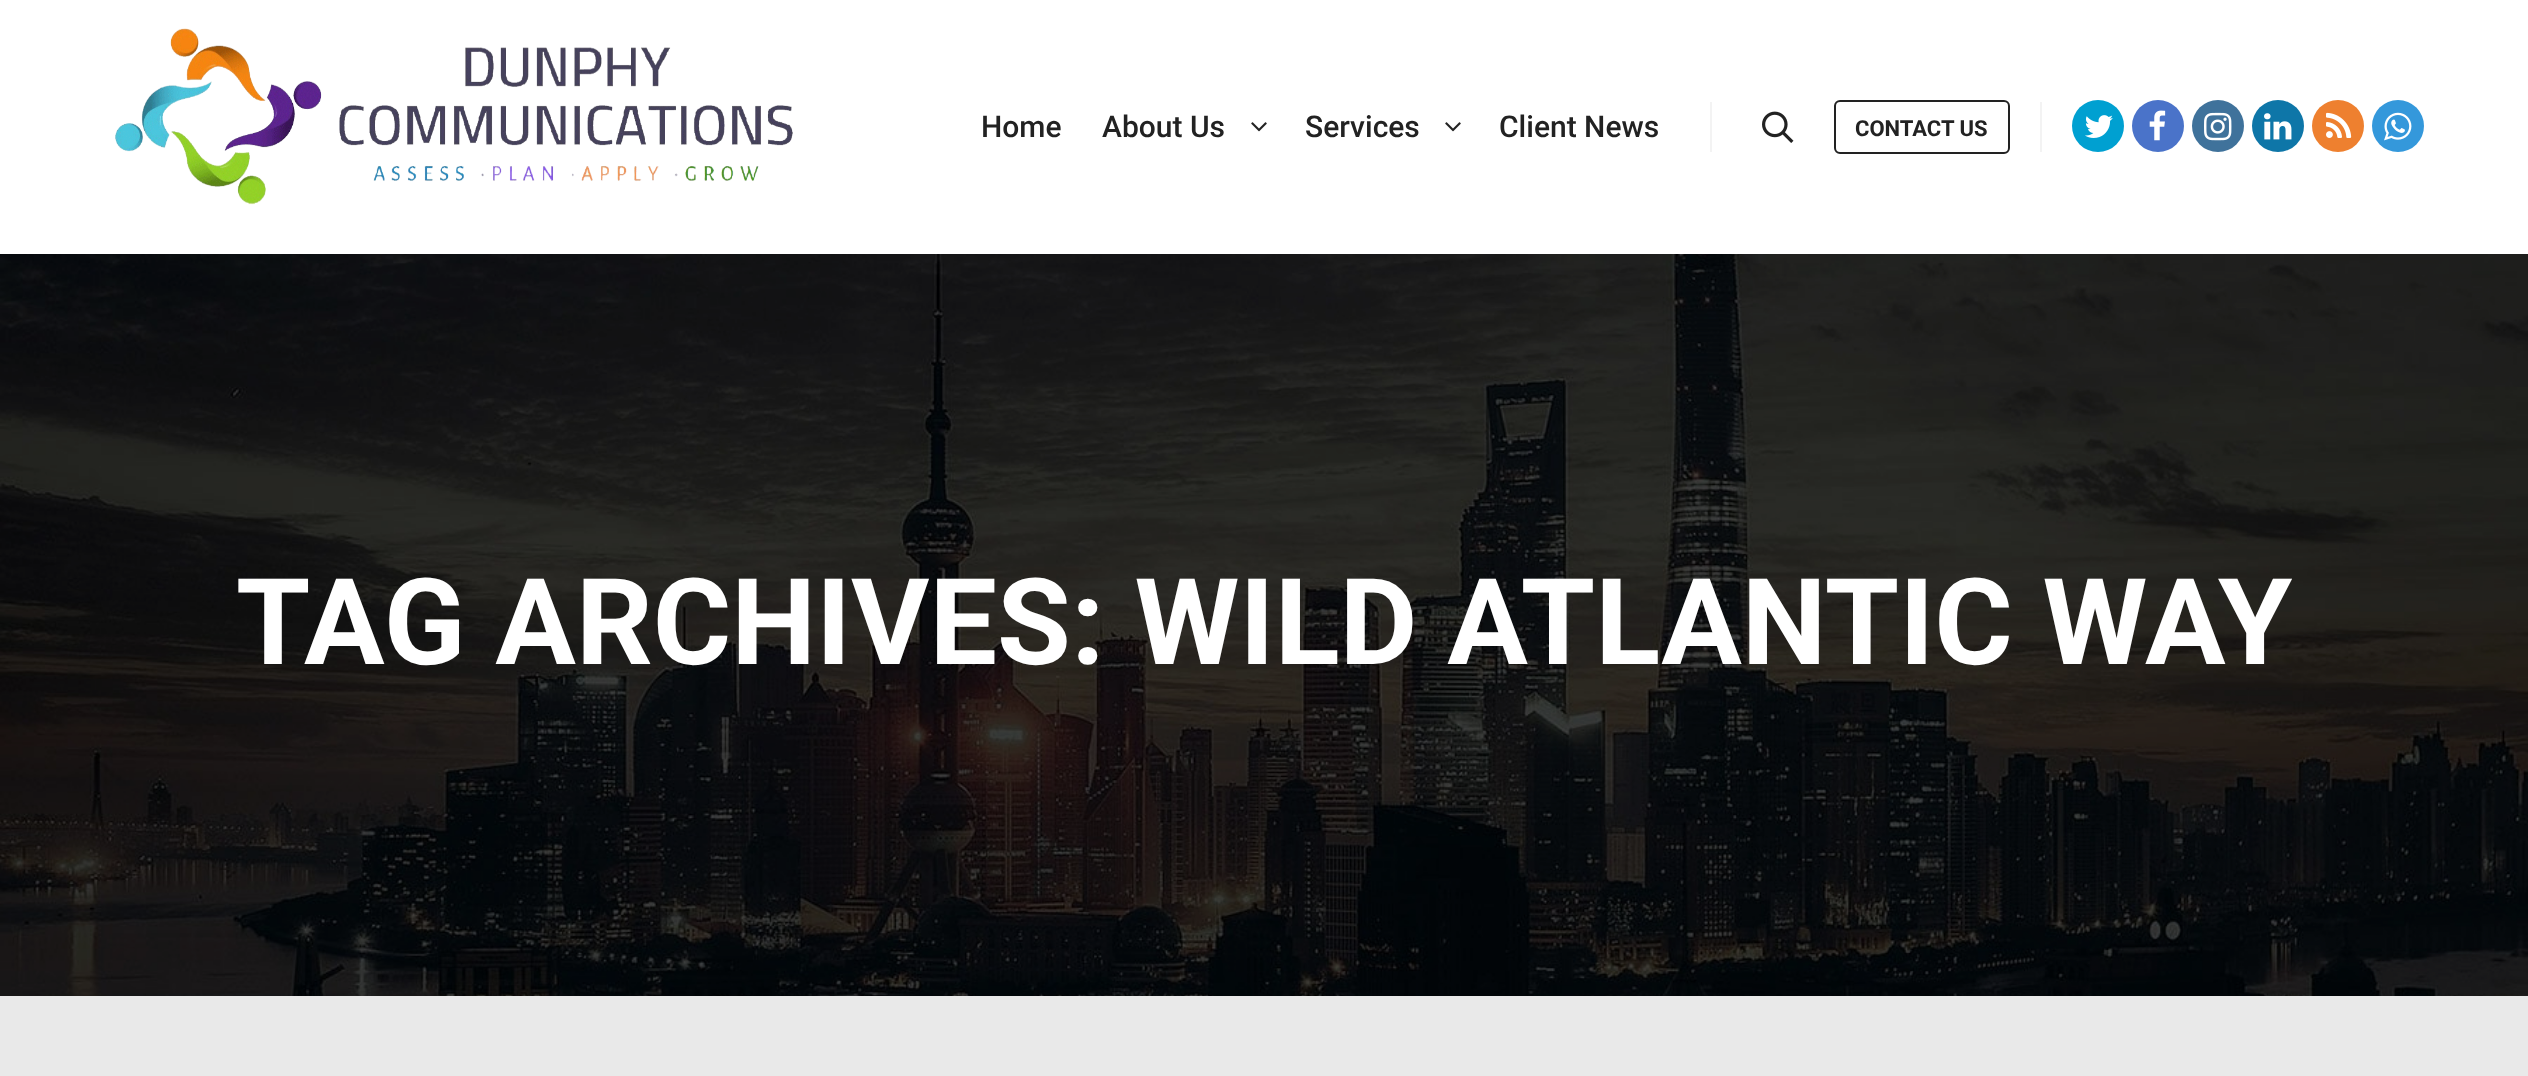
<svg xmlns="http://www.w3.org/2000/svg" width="2528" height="1076">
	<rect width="100%" height="100%" fill="#E9E9E9" />
	<rect x="0" y="0" width="2528" height="254" fill="#FFFFFF" />
	<image x="115" y="28" width="678" height="177" href="assets/img1.png" />
	<g font-family="Roboto" font-size="30" font-weight="500" fill="#222222">
		<text x="981" y="137">Home</text>
		<text x="1102" y="137">About Us</text>
	</g>
	<image x="1251" y="122" width="16" height="10" href="assets/img2.png" />
	<text x="1305" y="137" font-family="Roboto" font-size="30" font-weight="500" fill="#222222">Services</text>
	<image x="1445" y="122" width="16" height="10" href="assets/img2.png" />
	<text x="1499" y="137" font-family="Roboto" font-size="30" font-weight="500" fill="#222222">Client News</text>
	<rect x="1710" y="102" width="2" height="50" fill="#F3F3F3" />
	<image x="1762" y="111" width="32" height="32" href="assets/img3.png" />
	<rect x="1835" y="101" width="174" height="52" rx="5" fill="none" stroke="#222222" stroke-width="2" />
	<text x="1855" y="136" font-family="Roboto" font-size="22" font-weight="700" fill="#222222">CONTACT US</text>
	<rect x="2040" y="102" width="2" height="50" fill="#F3F3F3" />
	<circle cx="2098" cy="126" r="26" fill="#00A0D1" />
	<image x="2085" y="115" width="28" height="23" href="assets/img4.png" />
	<circle cx="2158" cy="126" r="26" fill="#4A73C9" />
	<image x="2149" y="110" width="17" height="31" href="assets/img5.png" />
	<circle cx="2218" cy="126" r="26" fill="#3F729B" />
	<image x="2204" y="112" width="28" height="29" href="assets/img6.png" />
	<circle cx="2278" cy="126" r="26" fill="#0E76A8" />
	<image x="2264" y="113" width="28" height="27" href="assets/img7.png" />
	<circle cx="2338" cy="126" r="26" fill="#EE802F" />
	<image x="2326" y="112" width="26" height="26" href="assets/img8.png" />
	<circle cx="2398" cy="126" r="26" fill="#3498DB" />
	<image x="2384" y="112" width="28" height="29" href="assets/img9.png" />
	<image x="0" y="254" width="2528" height="742" href="assets/img10.png" />
	<text x="236" y="664" font-family="Roboto" font-size="120" font-weight="700" fill="#FFFFFF">TAG ARCHIVES: WILD ATLANTIC WAY</text>
</svg>
